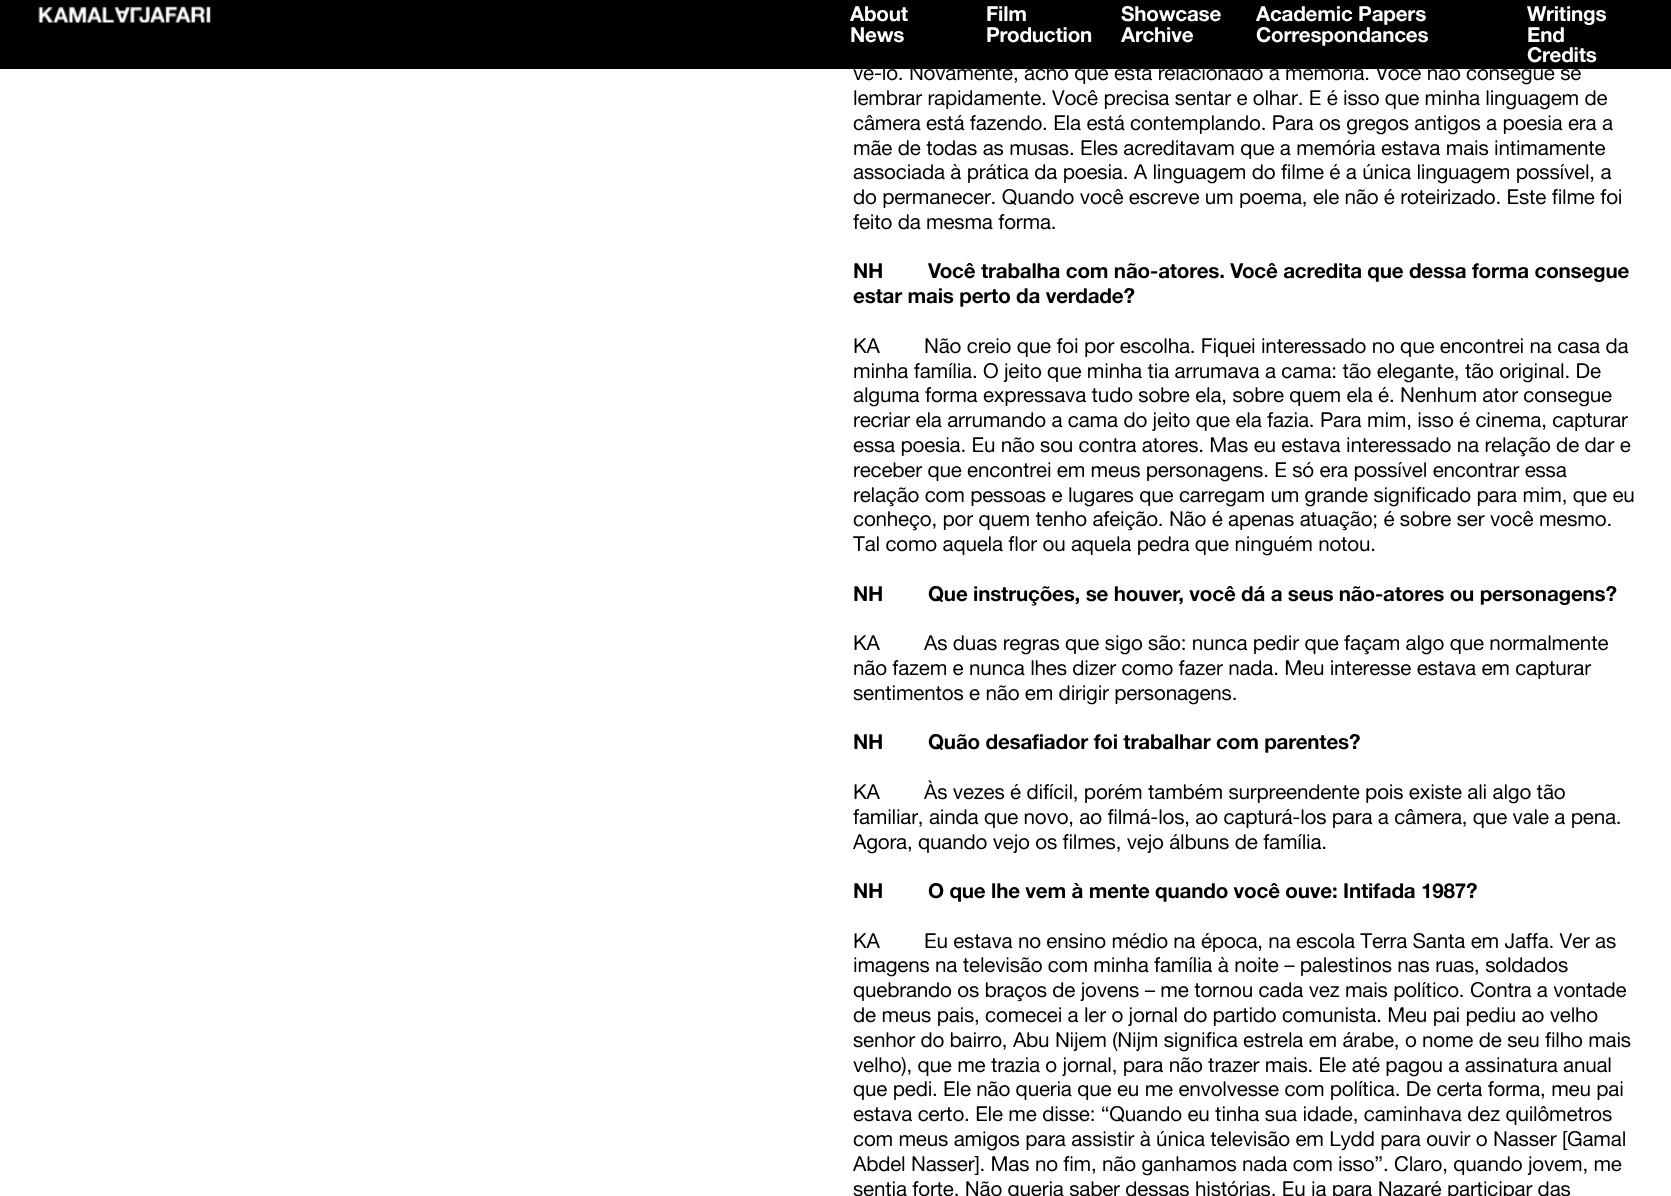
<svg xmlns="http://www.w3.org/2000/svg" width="1671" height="1196">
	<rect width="100%" height="100%" fill="#FFFFFF" />
	<rect x="0" y="0" width="1671" height="69" fill="#000000" />
	<image x="38" y="6" width="173" height="17" href="assets/img1.png" />
	<g font-family="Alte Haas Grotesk" font-size="20.65" font-weight="700" letter-spacing="-0.2" fill="#FFFFFF">
		<text x="850" y="21">About</text>
		<text x="850" y="42">News</text>
		<text x="986" y="21">Film</text>
		<text x="986" y="42">Production</text>
		<text x="1121" y="21">Showcase</text>
		<text x="1121" y="42">Archive</text>
		<text x="1256" y="21">Academic Papers</text>
		<text x="1256" y="42">Correspondances</text>
		<text x="1527" y="21">Writings</text>
		<text x="1527" y="42">End</text>
		<text x="1527" y="62">Credits</text>
	</g>
	<g font-family="Alte Haas Grotesk" font-size="20.65" letter-spacing="-0.2" fill="#000000">
		<text x="853" y="80">vê-lo. Novamente, acho que está relacionado à memória. Você não consegue se</text>
		<text x="853" y="105">lembrar rapidamente. Você precisa sentar e olhar. E é isso que minha linguagem de</text>
		<text x="853" y="130">câmera está fazendo. Ela está contemplando. Para os gregos antigos a poesia era a</text>
		<text x="853" y="155">mãe de todas as musas. Eles acreditavam que a memória estava mais intimamente</text>
		<text x="853" y="179">associada à prática da poesia. A linguagem do filme é a única linguagem possível, a</text>
		<text x="853" y="204">do permanecer. Quando você escreve um poema, ele não é roteirizado. Este filme foi</text>
		<text x="853" y="229">feito da mesma forma.</text>
	</g>
	<g font-family="Alte Haas Grotesk" font-size="20.65" font-weight="700" letter-spacing="-0.2" fill="#000000">
		<text x="853" y="278">NH</text>
		<text x="928" y="278">Você trabalha com não-atores. Você acredita que dessa forma consegue</text>
		<text x="853" y="303">estar mais perto da verdade?</text>
	</g>
	<g font-family="Alte Haas Grotesk" font-size="20.65" letter-spacing="-0.2" fill="#000000">
		<text x="853" y="353">KA</text>
		<text x="924" y="353">Não creio que foi por escolha. Fiquei interessado no que encontrei na casa da</text>
		<text x="853" y="378">minha família. O jeito que minha tia arrumava a cama: tão elegante, tão original. De</text>
		<text x="853" y="402">alguma forma expressava tudo sobre ela, sobre quem ela é. Nenhum ator consegue</text>
		<text x="853" y="427">recriar ela arrumando a cama do jeito que ela fazia. Para mim, isso é cinema, capturar</text>
		<text x="853" y="452">essa poesia. Eu não sou contra atores. Mas eu estava interessado na relação de dar e</text>
		<text x="853" y="477">receber que encontrei em meus personagens. E só era possível encontrar essa</text>
		<text x="853" y="502">relação com pessoas e lugares que carregam um grande significado para mim, que eu</text>
		<text x="853" y="526">conheço, por quem tenho afeição. Não é apenas atuação; é sobre ser você mesmo.</text>
		<text x="853" y="551">Tal como aquela flor ou aquela pedra que ninguém notou.</text>
	</g>
	<g font-family="Alte Haas Grotesk" font-size="20.65" font-weight="700" letter-spacing="-0.2" fill="#000000">
		<text x="853" y="601">NH</text>
		<text x="928" y="601">Que instruções, se houver, você dá a seus não-atores ou personagens?</text>
	</g>
	<g font-family="Alte Haas Grotesk" font-size="20.65" letter-spacing="-0.2" fill="#000000">
		<text x="853" y="650">KA</text>
		<text x="924" y="650">As duas regras que sigo são: nunca pedir que façam algo que normalmente</text>
		<text x="853" y="675">não fazem e nunca lhes dizer como fazer nada. Meu interesse estava em capturar</text>
		<text x="853" y="700">sentimentos e não em dirigir personagens.</text>
	</g>
	<g font-family="Alte Haas Grotesk" font-size="20.65" font-weight="700" letter-spacing="-0.2" fill="#000000">
		<text x="853" y="749">NH</text>
		<text x="928" y="749">Quão desafiador foi trabalhar com parentes?</text>
	</g>
	<g font-family="Alte Haas Grotesk" font-size="20.65" letter-spacing="-0.2" fill="#000000">
		<text x="853" y="799">KA</text>
		<text x="924" y="799">Às vezes é difícil, porém também surpreendente pois existe ali algo tão</text>
		<text x="853" y="824">familiar, ainda que novo, ao filmá-los, ao capturá-los para a câmera, que vale a pena.</text>
		<text x="853" y="849">Agora, quando vejo os filmes, vejo álbuns de família.</text>
	</g>
	<g font-family="Alte Haas Grotesk" font-size="20.65" font-weight="700" letter-spacing="-0.2" fill="#000000">
		<text x="853" y="898">NH</text>
		<text x="928" y="898">O que lhe vem à mente quando você ouve: Intifada 1987?</text>
	</g>
	<g font-family="Alte Haas Grotesk" font-size="20.65" letter-spacing="-0.2" fill="#000000">
		<text x="853" y="948">KA</text>
		<text x="924" y="948">Eu estava no ensino médio na época, na escola Terra Santa em Jaffa. Ver as</text>
		<text x="853" y="972">imagens na televisão com minha família à noite – palestinos nas ruas, soldados</text>
		<text x="853" y="997">quebrando os braços de jovens – me tornou cada vez mais político. Contra a vontade</text>
		<text x="853" y="1022">de meus pais, comecei a ler o jornal do partido comunista. Meu pai pediu ao velho</text>
		<text x="853" y="1047">senhor do bairro, Abu Nijem (Nijm significa estrela em árabe, o nome de seu filho mais</text>
		<text x="853" y="1072">velho), que me trazia o jornal, para não trazer mais. Ele até pagou a assinatura anual</text>
		<text x="853" y="1096">que pedi. Ele não queria que eu me envolvesse com política. De certa forma, meu pai</text>
		<text x="853" y="1121">estava certo. Ele me disse: “Quando eu tinha sua idade, caminhava dez quilômetros</text>
		<text x="853" y="1146">com meus amigos para assistir à única televisão em Lydd para ouvir o Nasser [Gamal</text>
		<text x="853" y="1171">Abdel Nasser]. Mas no fim, não ganhamos nada com isso”. Claro, quando jovem, me</text>
		<text x="853" y="1196">sentia forte. Não queria saber dessas histórias. Eu ia para Nazaré participar das</text>
	</g>
</svg>
